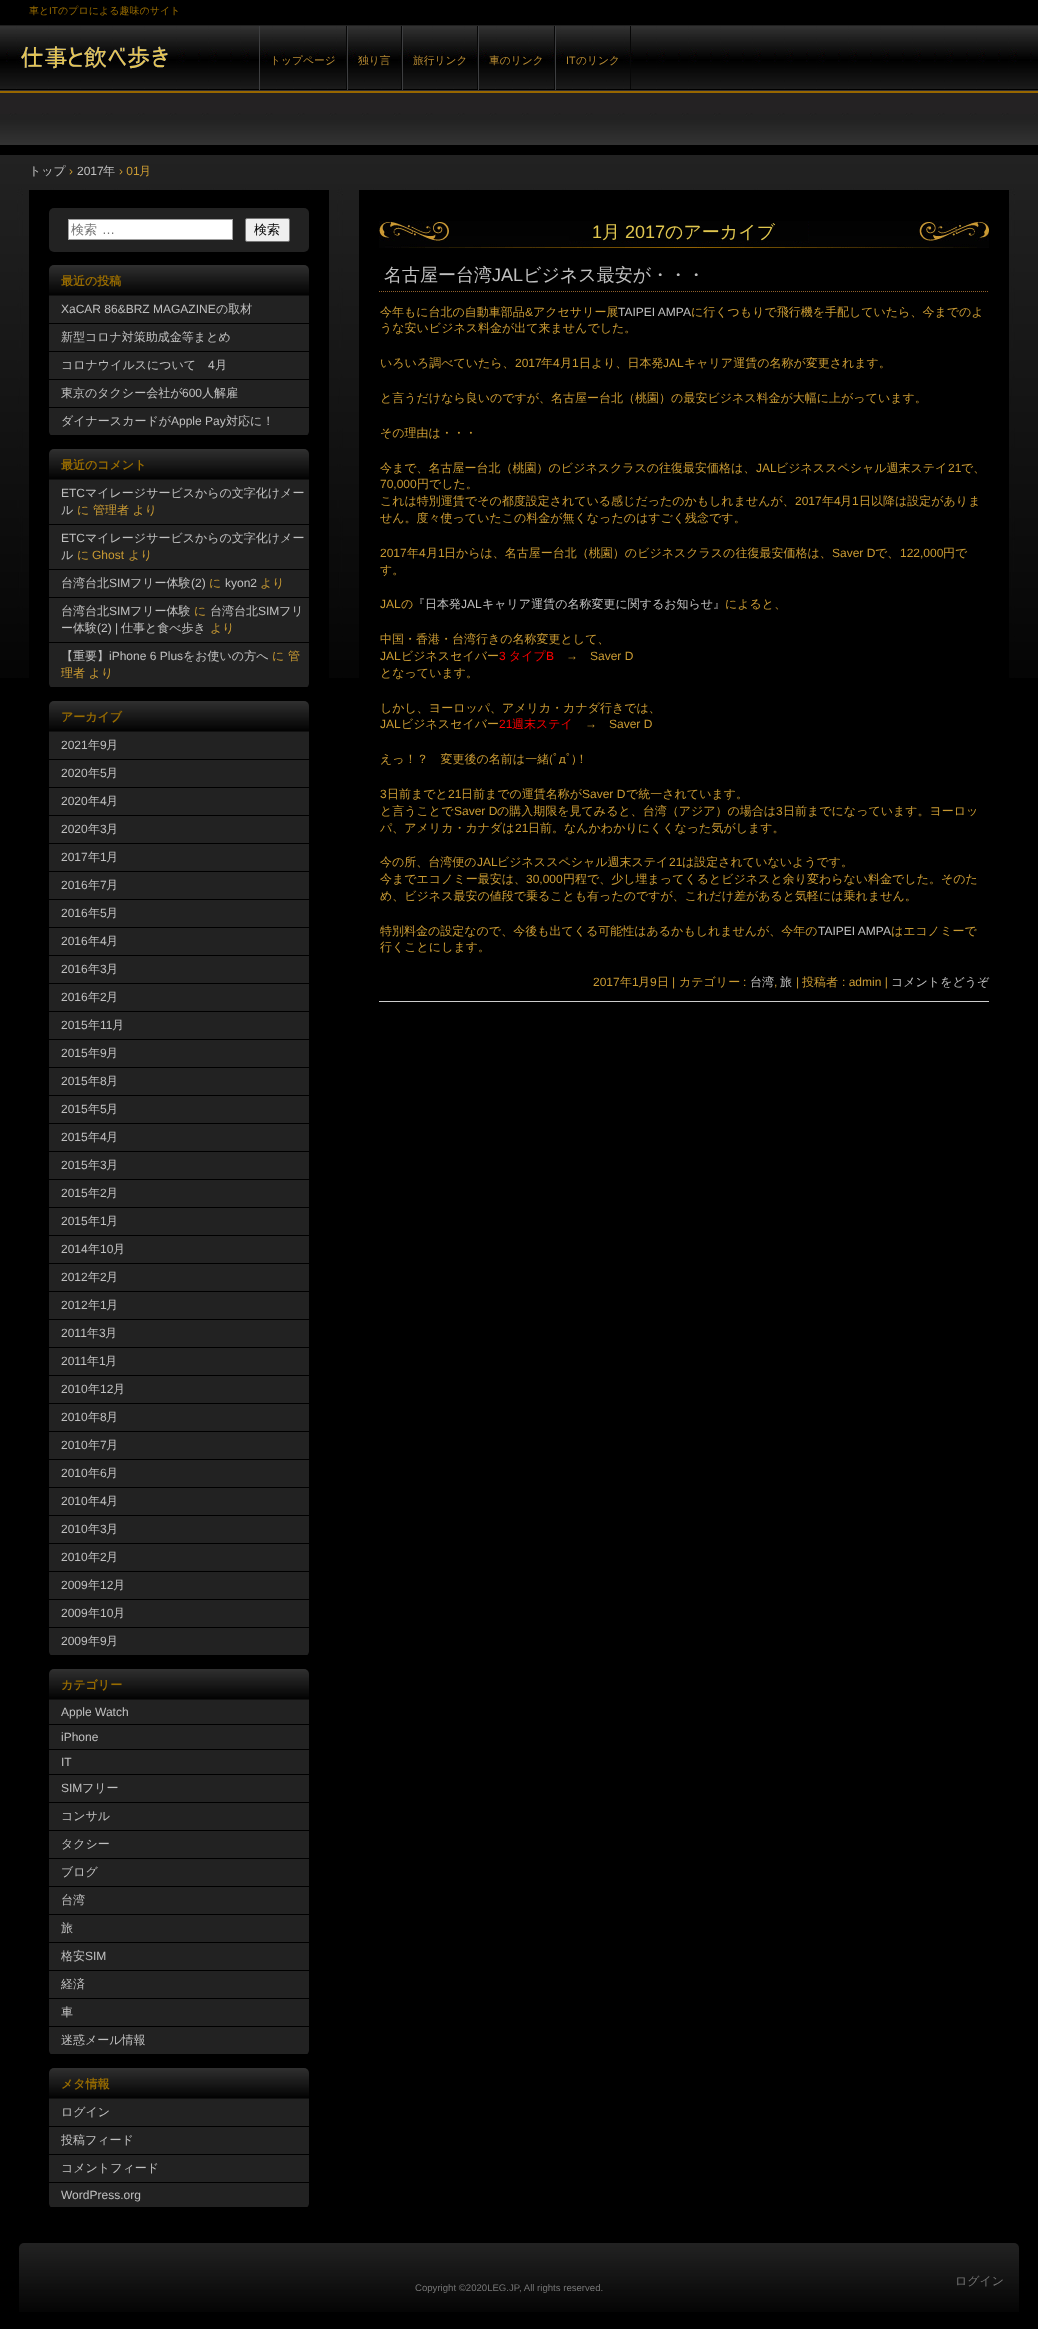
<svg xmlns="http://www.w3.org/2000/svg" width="1038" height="2329">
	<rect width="100%" height="100%" fill="#000000" />
	<image x="0" y="25" width="1038" height="653" href="assets/img1.png" />
	<text x="29" y="14" font-family="WenQuanYi Zen Hei" font-size="10" font-weight="500" fill="#976B00">車と</text>
	<text x="49" y="14" font-family="Liberation Sans" font-size="10" fill="#976B00">IT</text>
	<text x="58" y="14" font-family="WenQuanYi Zen Hei" font-size="10" font-weight="500" fill="#976B00">のプロによる趣味のサイト</text>
	<image x="21" y="46" width="147" height="23" href="assets/img2.png" />
	<image x="260" y="48" width="86" height="41" href="assets/img3.png" />
	<rect x="346" y="26" width="1" height="64" fill="#070707" />
	<rect x="346" y="89" width="1" height="1" fill="#000000" />
	<rect x="259" y="26" width="1" height="64" fill="#3D3E40" />
	<text x="270" y="64" font-family="WenQuanYi Zen Hei" font-size="10.75" font-weight="500" fill="#B68A33">トップページ</text>
	<image x="348" y="48" width="53" height="41" href="assets/img4.png" />
	<rect x="401" y="26" width="1" height="64" fill="#070707" />
	<rect x="401" y="89" width="1" height="1" fill="#000000" />
	<rect x="347" y="26" width="1" height="64" fill="#3D3E40" />
	<text x="358" y="64" font-family="WenQuanYi Zen Hei" font-size="10.75" font-weight="500" fill="#B68A33">独り言</text>
	<image x="403" y="48" width="74" height="41" href="assets/img5.png" />
	<rect x="477" y="26" width="1" height="64" fill="#070707" />
	<rect x="477" y="89" width="1" height="1" fill="#000000" />
	<rect x="402" y="26" width="1" height="64" fill="#3D3E40" />
	<text x="413" y="64" font-family="WenQuanYi Zen Hei" font-size="10.75" font-weight="500" fill="#B68A33">旅行リンク</text>
	<image x="479" y="48" width="75" height="41" href="assets/img6.png" />
	<rect x="554" y="26" width="1" height="64" fill="#070707" />
	<rect x="554" y="89" width="1" height="1" fill="#000000" />
	<rect x="478" y="26" width="1" height="64" fill="#3D3E40" />
	<text x="489" y="64" font-family="WenQuanYi Zen Hei" font-size="10.75" font-weight="500" fill="#B68A33">車のリンク</text>
	<image x="556" y="48" width="74" height="41" href="assets/img5.png" />
	<rect x="630" y="26" width="1" height="64" fill="#070707" />
	<rect x="630" y="89" width="1" height="1" fill="#000000" />
	<rect x="555" y="26" width="1" height="64" fill="#3D3E40" />
	<text x="566" y="64" font-family="Liberation Sans" font-size="10.75" fill="#B68A33">IT</text>
	<text x="576" y="64" font-family="WenQuanYi Zen Hei" font-size="10.75" font-weight="500" fill="#B68A33">のリンク</text>
	<text x="29" y="175" font-family="WenQuanYi Zen Hei" font-size="12" font-weight="500" fill="#C0C0C0">トップ</text>
	<text x="69" y="175" font-family="Liberation Sans" font-size="12" fill="#CA9B33">›</text>
	<text x="77" y="175" font-family="Liberation Sans" font-size="12" fill="#C0C0C0">2017</text>
	<text x="103" y="175" font-family="WenQuanYi Zen Hei" font-size="12" font-weight="500" fill="#C0C0C0">年</text>
	<text x="119" y="175" font-family="Liberation Sans" font-size="12" fill="#CA9B33">› 01</text>
	<text x="139" y="175" font-family="WenQuanYi Zen Hei" font-size="12" font-weight="500" fill="#CA9B33">月</text>
	<rect x="29" y="190" width="300" height="488" fill="#000000" />
	<rect x="49" y="208" width="260" height="44" rx="5" fill="#222222" />
	<rect x="68.5" y="219.5" width="164" height="20" fill="#FFFFFF" stroke="#9F9F9F" />
	<text x="71" y="234" font-family="WenQuanYi Zen Hei" font-size="13" font-weight="500" fill="#757575">検索</text>
	<text x="102" y="234" font-family="Liberation Sans" font-size="13" fill="#757575">…</text>
	<rect x="245.5" y="218.5" width="44" height="23" rx="1.5" fill="#EFEFEF" stroke="#767676" />
	<text x="254" y="234" font-family="WenQuanYi Zen Hei" font-size="13" font-weight="500" fill="#000000">検索</text>
	<image x="49" y="265" width="260" height="31" href="assets/img7.png" />
	<text x="61" y="285" font-family="WenQuanYi Zen Hei" font-size="12" font-weight="700" fill="#976B00">最近の投稿</text>
	<path d="M49 296H309V431C309 434 307 436 304 436H54C51 436 49 434 49 431Z" fill="#222222" />
	<rect x="49" y="323" width="260" height="1" fill="#000000" />
	<text x="61" y="313" font-family="Liberation Sans" font-size="12" fill="#C0C0C0">XaCAR 86&amp;BRZ MAGAZINE</text>
	<text x="216" y="313" font-family="WenQuanYi Zen Hei" font-size="12" font-weight="500" fill="#C0C0C0">の取材</text>
	<rect x="49" y="351" width="260" height="1" fill="#000000" />
	<text x="61" y="341" font-family="WenQuanYi Zen Hei" font-size="12" font-weight="500" fill="#C0C0C0">新型コロナ対策助成金等まとめ</text>
	<rect x="49" y="379" width="260" height="1" fill="#000000" />
	<text x="61" y="369" font-family="WenQuanYi Zen Hei" font-size="12" font-weight="500" fill="#C0C0C0">コロナウイルスについて</text>
	<text x="208" y="369" font-family="Liberation Sans" font-size="12" fill="#C0C0C0">4</text>
	<text x="215" y="369" font-family="WenQuanYi Zen Hei" font-size="12" font-weight="500" fill="#C0C0C0">月</text>
	<rect x="49" y="407" width="260" height="1" fill="#000000" />
	<text x="61" y="397" font-family="WenQuanYi Zen Hei" font-size="12" font-weight="500" fill="#C0C0C0">東京のタクシー会社が</text>
	<text x="182" y="397" font-family="Liberation Sans" font-size="12" fill="#C0C0C0">600</text>
	<text x="202" y="397" font-family="WenQuanYi Zen Hei" font-size="12" font-weight="500" fill="#C0C0C0">人解雇</text>
	<rect x="49" y="435" width="260" height="1" fill="#000000" />
	<text x="61" y="425" font-family="WenQuanYi Zen Hei" font-size="12" font-weight="500" fill="#C0C0C0">ダイナースカードが</text>
	<text x="171" y="425" font-family="Liberation Sans" font-size="12" fill="#C0C0C0">Apple Pay</text>
	<text x="226" y="425" font-family="WenQuanYi Zen Hei" font-size="12" font-weight="500" fill="#C0C0C0">対応に！</text>
	<image x="49" y="449" width="260" height="31" href="assets/img7.png" />
	<text x="61" y="469" font-family="WenQuanYi Zen Hei" font-size="12" font-weight="700" fill="#976B00">最近のコメント</text>
	<path d="M49 480H309V683C309 686 307 688 304 688H54C51 688 49 686 49 683Z" fill="#222222" />
	<rect x="49" y="524" width="260" height="1" fill="#000000" />
	<text x="61" y="497" font-family="Liberation Sans" font-size="12" fill="#C0C0C0">ETC</text>
	<g font-family="WenQuanYi Zen Hei" font-size="12" font-weight="500" fill="#C0C0C0">
		<text x="85" y="497">マイレージサービスからの文字化けメー</text>
		<text x="61" y="514">ル</text>
	</g>
	<text x="77" y="514" font-family="WenQuanYi Zen Hei" font-size="12" font-weight="500" fill="#CA9B33">に 管理者 より</text>
	<rect x="49" y="569" width="260" height="1" fill="#000000" />
	<text x="61" y="542" font-family="Liberation Sans" font-size="12" fill="#C0C0C0">ETC</text>
	<g font-family="WenQuanYi Zen Hei" font-size="12" font-weight="500" fill="#C0C0C0">
		<text x="85" y="542">マイレージサービスからの文字化けメー</text>
		<text x="61" y="559">ル</text>
	</g>
	<text x="77" y="559" font-family="WenQuanYi Zen Hei" font-size="12" font-weight="500" fill="#CA9B33">に</text>
	<text x="92" y="559" font-family="Liberation Sans" font-size="12" fill="#CA9B33">Ghost</text>
	<text x="128" y="559" font-family="WenQuanYi Zen Hei" font-size="12" font-weight="500" fill="#CA9B33">より</text>
	<rect x="49" y="597" width="260" height="1" fill="#000000" />
	<text x="61" y="587" font-family="WenQuanYi Zen Hei" font-size="12" font-weight="500" fill="#C0C0C0">台湾台北</text>
	<text x="109" y="587" font-family="Liberation Sans" font-size="12" fill="#C0C0C0">SIM</text>
	<text x="130" y="587" font-family="WenQuanYi Zen Hei" font-size="12" font-weight="500" fill="#C0C0C0">フリー体験</text>
	<text x="191" y="587" font-family="Liberation Sans" font-size="12" fill="#C0C0C0">(2)</text>
	<text x="209" y="587" font-family="WenQuanYi Zen Hei" font-size="12" font-weight="500" fill="#CA9B33">に</text>
	<text x="225" y="587" font-family="Liberation Sans" font-size="12" fill="#C0C0C0">kyon2</text>
	<text x="260" y="587" font-family="WenQuanYi Zen Hei" font-size="12" font-weight="500" fill="#CA9B33">より</text>
	<rect x="49" y="642" width="260" height="1" fill="#000000" />
	<text x="61" y="615" font-family="WenQuanYi Zen Hei" font-size="12" font-weight="500" fill="#C0C0C0">台湾台北</text>
	<text x="109" y="615" font-family="Liberation Sans" font-size="12" fill="#C0C0C0">SIM</text>
	<text x="130" y="615" font-family="WenQuanYi Zen Hei" font-size="12" font-weight="500" fill="#C0C0C0">フリー体験</text>
	<text x="194" y="615" font-family="WenQuanYi Zen Hei" font-size="12" font-weight="500" fill="#CA9B33">に</text>
	<text x="210" y="615" font-family="WenQuanYi Zen Hei" font-size="12" font-weight="500" fill="#C0C0C0">台湾台北</text>
	<text x="258" y="615" font-family="Liberation Sans" font-size="12" fill="#C0C0C0">SIM</text>
	<g font-family="WenQuanYi Zen Hei" font-size="12" font-weight="500" fill="#C0C0C0">
		<text x="279" y="615">フリ</text>
		<text x="61" y="632">ー体験</text>
	</g>
	<text x="97" y="632" font-family="Liberation Sans" font-size="12" fill="#C0C0C0">(2) |</text>
	<text x="121" y="632" font-family="WenQuanYi Zen Hei" font-size="12" font-weight="500" fill="#C0C0C0">仕事と食べ歩き</text>
	<text x="210" y="632" font-family="WenQuanYi Zen Hei" font-size="12" font-weight="500" fill="#CA9B33">より</text>
	<rect x="49" y="687" width="260" height="1" fill="#000000" />
	<text x="61" y="660" font-family="WenQuanYi Zen Hei" font-size="12" font-weight="500" fill="#C0C0C0">【重要】</text>
	<text x="109" y="660" font-family="Liberation Sans" font-size="12" fill="#C0C0C0">iPhone 6 Plus</text>
	<text x="183" y="660" font-family="WenQuanYi Zen Hei" font-size="12" font-weight="500" fill="#C0C0C0">をお使いの方へ</text>
	<g font-family="WenQuanYi Zen Hei" font-size="12" font-weight="500" fill="#CA9B33">
		<text x="272" y="660">に 管</text>
		<text x="61" y="677">理者 より</text>
	</g>
	<image x="49" y="701" width="260" height="31" href="assets/img7.png" />
	<text x="61" y="721" font-family="WenQuanYi Zen Hei" font-size="12" font-weight="700" fill="#976B00">アーカイブ</text>
	<path d="M49 732H309V1651C309 1654 307 1656 304 1656H54C51 1656 49 1654 49 1651Z" fill="#222222" />
	<rect x="49" y="759" width="260" height="1" fill="#000000" />
	<text x="61" y="749" font-family="Liberation Sans" font-size="12" fill="#C0C0C0">2021</text>
	<text x="88" y="749" font-family="WenQuanYi Zen Hei" font-size="12" font-weight="500" fill="#C0C0C0">年</text>
	<text x="100" y="749" font-family="Liberation Sans" font-size="12" fill="#C0C0C0">9</text>
	<text x="106" y="749" font-family="WenQuanYi Zen Hei" font-size="12" font-weight="500" fill="#C0C0C0">月</text>
	<rect x="49" y="787" width="260" height="1" fill="#000000" />
	<text x="61" y="777" font-family="Liberation Sans" font-size="12" fill="#C0C0C0">2020</text>
	<text x="88" y="777" font-family="WenQuanYi Zen Hei" font-size="12" font-weight="500" fill="#C0C0C0">年</text>
	<text x="100" y="777" font-family="Liberation Sans" font-size="12" fill="#C0C0C0">5</text>
	<text x="106" y="777" font-family="WenQuanYi Zen Hei" font-size="12" font-weight="500" fill="#C0C0C0">月</text>
	<rect x="49" y="815" width="260" height="1" fill="#000000" />
	<text x="61" y="805" font-family="Liberation Sans" font-size="12" fill="#C0C0C0">2020</text>
	<text x="88" y="805" font-family="WenQuanYi Zen Hei" font-size="12" font-weight="500" fill="#C0C0C0">年</text>
	<text x="100" y="805" font-family="Liberation Sans" font-size="12" fill="#C0C0C0">4</text>
	<text x="106" y="805" font-family="WenQuanYi Zen Hei" font-size="12" font-weight="500" fill="#C0C0C0">月</text>
	<rect x="49" y="843" width="260" height="1" fill="#000000" />
	<text x="61" y="833" font-family="Liberation Sans" font-size="12" fill="#C0C0C0">2020</text>
	<text x="88" y="833" font-family="WenQuanYi Zen Hei" font-size="12" font-weight="500" fill="#C0C0C0">年</text>
	<text x="100" y="833" font-family="Liberation Sans" font-size="12" fill="#C0C0C0">3</text>
	<text x="106" y="833" font-family="WenQuanYi Zen Hei" font-size="12" font-weight="500" fill="#C0C0C0">月</text>
	<rect x="49" y="871" width="260" height="1" fill="#000000" />
	<text x="61" y="861" font-family="Liberation Sans" font-size="12" fill="#C0C0C0">2017</text>
	<text x="88" y="861" font-family="WenQuanYi Zen Hei" font-size="12" font-weight="500" fill="#C0C0C0">年</text>
	<text x="100" y="861" font-family="Liberation Sans" font-size="12" fill="#C0C0C0">1</text>
	<text x="106" y="861" font-family="WenQuanYi Zen Hei" font-size="12" font-weight="500" fill="#C0C0C0">月</text>
	<rect x="49" y="899" width="260" height="1" fill="#000000" />
	<text x="61" y="889" font-family="Liberation Sans" font-size="12" fill="#C0C0C0">2016</text>
	<text x="88" y="889" font-family="WenQuanYi Zen Hei" font-size="12" font-weight="500" fill="#C0C0C0">年</text>
	<text x="100" y="889" font-family="Liberation Sans" font-size="12" fill="#C0C0C0">7</text>
	<text x="106" y="889" font-family="WenQuanYi Zen Hei" font-size="12" font-weight="500" fill="#C0C0C0">月</text>
	<rect x="49" y="927" width="260" height="1" fill="#000000" />
	<text x="61" y="917" font-family="Liberation Sans" font-size="12" fill="#C0C0C0">2016</text>
	<text x="88" y="917" font-family="WenQuanYi Zen Hei" font-size="12" font-weight="500" fill="#C0C0C0">年</text>
	<text x="100" y="917" font-family="Liberation Sans" font-size="12" fill="#C0C0C0">5</text>
	<text x="106" y="917" font-family="WenQuanYi Zen Hei" font-size="12" font-weight="500" fill="#C0C0C0">月</text>
	<rect x="49" y="955" width="260" height="1" fill="#000000" />
	<text x="61" y="945" font-family="Liberation Sans" font-size="12" fill="#C0C0C0">2016</text>
	<text x="88" y="945" font-family="WenQuanYi Zen Hei" font-size="12" font-weight="500" fill="#C0C0C0">年</text>
	<text x="100" y="945" font-family="Liberation Sans" font-size="12" fill="#C0C0C0">4</text>
	<text x="106" y="945" font-family="WenQuanYi Zen Hei" font-size="12" font-weight="500" fill="#C0C0C0">月</text>
	<rect x="49" y="983" width="260" height="1" fill="#000000" />
	<text x="61" y="973" font-family="Liberation Sans" font-size="12" fill="#C0C0C0">2016</text>
	<text x="88" y="973" font-family="WenQuanYi Zen Hei" font-size="12" font-weight="500" fill="#C0C0C0">年</text>
	<text x="100" y="973" font-family="Liberation Sans" font-size="12" fill="#C0C0C0">3</text>
	<text x="106" y="973" font-family="WenQuanYi Zen Hei" font-size="12" font-weight="500" fill="#C0C0C0">月</text>
	<rect x="49" y="1011" width="260" height="1" fill="#000000" />
	<text x="61" y="1001" font-family="Liberation Sans" font-size="12" fill="#C0C0C0">2016</text>
	<text x="88" y="1001" font-family="WenQuanYi Zen Hei" font-size="12" font-weight="500" fill="#C0C0C0">年</text>
	<text x="100" y="1001" font-family="Liberation Sans" font-size="12" fill="#C0C0C0">2</text>
	<text x="106" y="1001" font-family="WenQuanYi Zen Hei" font-size="12" font-weight="500" fill="#C0C0C0">月</text>
	<rect x="49" y="1039" width="260" height="1" fill="#000000" />
	<text x="61" y="1029" font-family="Liberation Sans" font-size="12" fill="#C0C0C0">2015</text>
	<text x="88" y="1029" font-family="WenQuanYi Zen Hei" font-size="12" font-weight="500" fill="#C0C0C0">年</text>
	<text x="100" y="1029" font-family="Liberation Sans" font-size="12" fill="#C0C0C0">11</text>
	<text x="112" y="1029" font-family="WenQuanYi Zen Hei" font-size="12" font-weight="500" fill="#C0C0C0">月</text>
	<rect x="49" y="1067" width="260" height="1" fill="#000000" />
	<text x="61" y="1057" font-family="Liberation Sans" font-size="12" fill="#C0C0C0">2015</text>
	<text x="88" y="1057" font-family="WenQuanYi Zen Hei" font-size="12" font-weight="500" fill="#C0C0C0">年</text>
	<text x="100" y="1057" font-family="Liberation Sans" font-size="12" fill="#C0C0C0">9</text>
	<text x="106" y="1057" font-family="WenQuanYi Zen Hei" font-size="12" font-weight="500" fill="#C0C0C0">月</text>
	<rect x="49" y="1095" width="260" height="1" fill="#000000" />
	<text x="61" y="1085" font-family="Liberation Sans" font-size="12" fill="#C0C0C0">2015</text>
	<text x="88" y="1085" font-family="WenQuanYi Zen Hei" font-size="12" font-weight="500" fill="#C0C0C0">年</text>
	<text x="100" y="1085" font-family="Liberation Sans" font-size="12" fill="#C0C0C0">8</text>
	<text x="106" y="1085" font-family="WenQuanYi Zen Hei" font-size="12" font-weight="500" fill="#C0C0C0">月</text>
	<rect x="49" y="1123" width="260" height="1" fill="#000000" />
	<text x="61" y="1113" font-family="Liberation Sans" font-size="12" fill="#C0C0C0">2015</text>
	<text x="88" y="1113" font-family="WenQuanYi Zen Hei" font-size="12" font-weight="500" fill="#C0C0C0">年</text>
	<text x="100" y="1113" font-family="Liberation Sans" font-size="12" fill="#C0C0C0">5</text>
	<text x="106" y="1113" font-family="WenQuanYi Zen Hei" font-size="12" font-weight="500" fill="#C0C0C0">月</text>
	<rect x="49" y="1151" width="260" height="1" fill="#000000" />
	<text x="61" y="1141" font-family="Liberation Sans" font-size="12" fill="#C0C0C0">2015</text>
	<text x="88" y="1141" font-family="WenQuanYi Zen Hei" font-size="12" font-weight="500" fill="#C0C0C0">年</text>
	<text x="100" y="1141" font-family="Liberation Sans" font-size="12" fill="#C0C0C0">4</text>
	<text x="106" y="1141" font-family="WenQuanYi Zen Hei" font-size="12" font-weight="500" fill="#C0C0C0">月</text>
	<rect x="49" y="1179" width="260" height="1" fill="#000000" />
	<text x="61" y="1169" font-family="Liberation Sans" font-size="12" fill="#C0C0C0">2015</text>
	<text x="88" y="1169" font-family="WenQuanYi Zen Hei" font-size="12" font-weight="500" fill="#C0C0C0">年</text>
	<text x="100" y="1169" font-family="Liberation Sans" font-size="12" fill="#C0C0C0">3</text>
	<text x="106" y="1169" font-family="WenQuanYi Zen Hei" font-size="12" font-weight="500" fill="#C0C0C0">月</text>
	<rect x="49" y="1207" width="260" height="1" fill="#000000" />
	<text x="61" y="1197" font-family="Liberation Sans" font-size="12" fill="#C0C0C0">2015</text>
	<text x="88" y="1197" font-family="WenQuanYi Zen Hei" font-size="12" font-weight="500" fill="#C0C0C0">年</text>
	<text x="100" y="1197" font-family="Liberation Sans" font-size="12" fill="#C0C0C0">2</text>
	<text x="106" y="1197" font-family="WenQuanYi Zen Hei" font-size="12" font-weight="500" fill="#C0C0C0">月</text>
	<rect x="49" y="1235" width="260" height="1" fill="#000000" />
	<text x="61" y="1225" font-family="Liberation Sans" font-size="12" fill="#C0C0C0">2015</text>
	<text x="88" y="1225" font-family="WenQuanYi Zen Hei" font-size="12" font-weight="500" fill="#C0C0C0">年</text>
	<text x="100" y="1225" font-family="Liberation Sans" font-size="12" fill="#C0C0C0">1</text>
	<text x="106" y="1225" font-family="WenQuanYi Zen Hei" font-size="12" font-weight="500" fill="#C0C0C0">月</text>
	<rect x="49" y="1263" width="260" height="1" fill="#000000" />
	<text x="61" y="1253" font-family="Liberation Sans" font-size="12" fill="#C0C0C0">2014</text>
	<text x="88" y="1253" font-family="WenQuanYi Zen Hei" font-size="12" font-weight="500" fill="#C0C0C0">年</text>
	<text x="100" y="1253" font-family="Liberation Sans" font-size="12" fill="#C0C0C0">10</text>
	<text x="113" y="1253" font-family="WenQuanYi Zen Hei" font-size="12" font-weight="500" fill="#C0C0C0">月</text>
	<rect x="49" y="1291" width="260" height="1" fill="#000000" />
	<text x="61" y="1281" font-family="Liberation Sans" font-size="12" fill="#C0C0C0">2012</text>
	<text x="88" y="1281" font-family="WenQuanYi Zen Hei" font-size="12" font-weight="500" fill="#C0C0C0">年</text>
	<text x="100" y="1281" font-family="Liberation Sans" font-size="12" fill="#C0C0C0">2</text>
	<text x="106" y="1281" font-family="WenQuanYi Zen Hei" font-size="12" font-weight="500" fill="#C0C0C0">月</text>
	<rect x="49" y="1319" width="260" height="1" fill="#000000" />
	<text x="61" y="1309" font-family="Liberation Sans" font-size="12" fill="#C0C0C0">2012</text>
	<text x="88" y="1309" font-family="WenQuanYi Zen Hei" font-size="12" font-weight="500" fill="#C0C0C0">年</text>
	<text x="100" y="1309" font-family="Liberation Sans" font-size="12" fill="#C0C0C0">1</text>
	<text x="106" y="1309" font-family="WenQuanYi Zen Hei" font-size="12" font-weight="500" fill="#C0C0C0">月</text>
	<rect x="49" y="1347" width="260" height="1" fill="#000000" />
	<text x="61" y="1337" font-family="Liberation Sans" font-size="12" fill="#C0C0C0">2011</text>
	<text x="87" y="1337" font-family="WenQuanYi Zen Hei" font-size="12" font-weight="500" fill="#C0C0C0">年</text>
	<text x="99" y="1337" font-family="Liberation Sans" font-size="12" fill="#C0C0C0">3</text>
	<text x="105" y="1337" font-family="WenQuanYi Zen Hei" font-size="12" font-weight="500" fill="#C0C0C0">月</text>
	<rect x="49" y="1375" width="260" height="1" fill="#000000" />
	<text x="61" y="1365" font-family="Liberation Sans" font-size="12" fill="#C0C0C0">2011</text>
	<text x="87" y="1365" font-family="WenQuanYi Zen Hei" font-size="12" font-weight="500" fill="#C0C0C0">年</text>
	<text x="99" y="1365" font-family="Liberation Sans" font-size="12" fill="#C0C0C0">1</text>
	<text x="105" y="1365" font-family="WenQuanYi Zen Hei" font-size="12" font-weight="500" fill="#C0C0C0">月</text>
	<rect x="49" y="1403" width="260" height="1" fill="#000000" />
	<text x="61" y="1393" font-family="Liberation Sans" font-size="12" fill="#C0C0C0">2010</text>
	<text x="88" y="1393" font-family="WenQuanYi Zen Hei" font-size="12" font-weight="500" fill="#C0C0C0">年</text>
	<text x="100" y="1393" font-family="Liberation Sans" font-size="12" fill="#C0C0C0">12</text>
	<text x="113" y="1393" font-family="WenQuanYi Zen Hei" font-size="12" font-weight="500" fill="#C0C0C0">月</text>
	<rect x="49" y="1431" width="260" height="1" fill="#000000" />
	<text x="61" y="1421" font-family="Liberation Sans" font-size="12" fill="#C0C0C0">2010</text>
	<text x="88" y="1421" font-family="WenQuanYi Zen Hei" font-size="12" font-weight="500" fill="#C0C0C0">年</text>
	<text x="100" y="1421" font-family="Liberation Sans" font-size="12" fill="#C0C0C0">8</text>
	<text x="106" y="1421" font-family="WenQuanYi Zen Hei" font-size="12" font-weight="500" fill="#C0C0C0">月</text>
	<rect x="49" y="1459" width="260" height="1" fill="#000000" />
	<text x="61" y="1449" font-family="Liberation Sans" font-size="12" fill="#C0C0C0">2010</text>
	<text x="88" y="1449" font-family="WenQuanYi Zen Hei" font-size="12" font-weight="500" fill="#C0C0C0">年</text>
	<text x="100" y="1449" font-family="Liberation Sans" font-size="12" fill="#C0C0C0">7</text>
	<text x="106" y="1449" font-family="WenQuanYi Zen Hei" font-size="12" font-weight="500" fill="#C0C0C0">月</text>
	<rect x="49" y="1487" width="260" height="1" fill="#000000" />
	<text x="61" y="1477" font-family="Liberation Sans" font-size="12" fill="#C0C0C0">2010</text>
	<text x="88" y="1477" font-family="WenQuanYi Zen Hei" font-size="12" font-weight="500" fill="#C0C0C0">年</text>
	<text x="100" y="1477" font-family="Liberation Sans" font-size="12" fill="#C0C0C0">6</text>
	<text x="106" y="1477" font-family="WenQuanYi Zen Hei" font-size="12" font-weight="500" fill="#C0C0C0">月</text>
	<rect x="49" y="1515" width="260" height="1" fill="#000000" />
	<text x="61" y="1505" font-family="Liberation Sans" font-size="12" fill="#C0C0C0">2010</text>
	<text x="88" y="1505" font-family="WenQuanYi Zen Hei" font-size="12" font-weight="500" fill="#C0C0C0">年</text>
	<text x="100" y="1505" font-family="Liberation Sans" font-size="12" fill="#C0C0C0">4</text>
	<text x="106" y="1505" font-family="WenQuanYi Zen Hei" font-size="12" font-weight="500" fill="#C0C0C0">月</text>
	<rect x="49" y="1543" width="260" height="1" fill="#000000" />
	<text x="61" y="1533" font-family="Liberation Sans" font-size="12" fill="#C0C0C0">2010</text>
	<text x="88" y="1533" font-family="WenQuanYi Zen Hei" font-size="12" font-weight="500" fill="#C0C0C0">年</text>
	<text x="100" y="1533" font-family="Liberation Sans" font-size="12" fill="#C0C0C0">3</text>
	<text x="106" y="1533" font-family="WenQuanYi Zen Hei" font-size="12" font-weight="500" fill="#C0C0C0">月</text>
	<rect x="49" y="1571" width="260" height="1" fill="#000000" />
	<text x="61" y="1561" font-family="Liberation Sans" font-size="12" fill="#C0C0C0">2010</text>
	<text x="88" y="1561" font-family="WenQuanYi Zen Hei" font-size="12" font-weight="500" fill="#C0C0C0">年</text>
	<text x="100" y="1561" font-family="Liberation Sans" font-size="12" fill="#C0C0C0">2</text>
	<text x="106" y="1561" font-family="WenQuanYi Zen Hei" font-size="12" font-weight="500" fill="#C0C0C0">月</text>
	<rect x="49" y="1599" width="260" height="1" fill="#000000" />
	<text x="61" y="1589" font-family="Liberation Sans" font-size="12" fill="#C0C0C0">2009</text>
	<text x="88" y="1589" font-family="WenQuanYi Zen Hei" font-size="12" font-weight="500" fill="#C0C0C0">年</text>
	<text x="100" y="1589" font-family="Liberation Sans" font-size="12" fill="#C0C0C0">12</text>
	<text x="113" y="1589" font-family="WenQuanYi Zen Hei" font-size="12" font-weight="500" fill="#C0C0C0">月</text>
	<rect x="49" y="1627" width="260" height="1" fill="#000000" />
	<text x="61" y="1617" font-family="Liberation Sans" font-size="12" fill="#C0C0C0">2009</text>
	<text x="88" y="1617" font-family="WenQuanYi Zen Hei" font-size="12" font-weight="500" fill="#C0C0C0">年</text>
	<text x="100" y="1617" font-family="Liberation Sans" font-size="12" fill="#C0C0C0">10</text>
	<text x="113" y="1617" font-family="WenQuanYi Zen Hei" font-size="12" font-weight="500" fill="#C0C0C0">月</text>
	<rect x="49" y="1655" width="260" height="1" fill="#000000" />
	<text x="61" y="1645" font-family="Liberation Sans" font-size="12" fill="#C0C0C0">2009</text>
	<text x="88" y="1645" font-family="WenQuanYi Zen Hei" font-size="12" font-weight="500" fill="#C0C0C0">年</text>
	<text x="100" y="1645" font-family="Liberation Sans" font-size="12" fill="#C0C0C0">9</text>
	<text x="106" y="1645" font-family="WenQuanYi Zen Hei" font-size="12" font-weight="500" fill="#C0C0C0">月</text>
	<image x="49" y="1669" width="260" height="31" href="assets/img7.png" />
	<text x="61" y="1689" font-family="WenQuanYi Zen Hei" font-size="12" font-weight="700" fill="#976B00">カテゴリー</text>
	<path d="M49 1700H309V2050C309 2053 307 2055 304 2055H54C51 2055 49 2053 49 2050Z" fill="#222222" />
	<rect x="49" y="1724" width="260" height="1" fill="#000000" />
	<text x="61" y="1716" font-family="Liberation Sans" font-size="12" fill="#C0C0C0">Apple Watch</text>
	<rect x="49" y="1749" width="260" height="1" fill="#000000" />
	<text x="61" y="1741" font-family="Liberation Sans" font-size="12" fill="#C0C0C0">iPhone</text>
	<rect x="49" y="1774" width="260" height="1" fill="#000000" />
	<text x="61" y="1766" font-family="Liberation Sans" font-size="12" fill="#C0C0C0">IT</text>
	<rect x="49" y="1802" width="260" height="1" fill="#000000" />
	<text x="61" y="1792" font-family="Liberation Sans" font-size="12" fill="#C0C0C0">SIM</text>
	<text x="82" y="1792" font-family="WenQuanYi Zen Hei" font-size="12" font-weight="500" fill="#C0C0C0">フリー</text>
	<rect x="49" y="1830" width="260" height="1" fill="#000000" />
	<text x="61" y="1820" font-family="WenQuanYi Zen Hei" font-size="12" font-weight="500" fill="#C0C0C0">コンサル</text>
	<rect x="49" y="1858" width="260" height="1" fill="#000000" />
	<text x="61" y="1848" font-family="WenQuanYi Zen Hei" font-size="12" font-weight="500" fill="#C0C0C0">タクシー</text>
	<rect x="49" y="1886" width="260" height="1" fill="#000000" />
	<text x="61" y="1876" font-family="WenQuanYi Zen Hei" font-size="12" font-weight="500" fill="#C0C0C0">ブログ</text>
	<rect x="49" y="1914" width="260" height="1" fill="#000000" />
	<text x="61" y="1904" font-family="WenQuanYi Zen Hei" font-size="12" font-weight="500" fill="#C0C0C0">台湾</text>
	<rect x="49" y="1942" width="260" height="1" fill="#000000" />
	<text x="61" y="1932" font-family="WenQuanYi Zen Hei" font-size="12" font-weight="500" fill="#C0C0C0">旅</text>
	<rect x="49" y="1970" width="260" height="1" fill="#000000" />
	<text x="61" y="1960" font-family="WenQuanYi Zen Hei" font-size="12" font-weight="500" fill="#C0C0C0">格安</text>
	<text x="85" y="1960" font-family="Liberation Sans" font-size="12" fill="#C0C0C0">SIM</text>
	<rect x="49" y="1998" width="260" height="1" fill="#000000" />
	<text x="61" y="1988" font-family="WenQuanYi Zen Hei" font-size="12" font-weight="500" fill="#C0C0C0">経済</text>
	<rect x="49" y="2026" width="260" height="1" fill="#000000" />
	<text x="61" y="2016" font-family="WenQuanYi Zen Hei" font-size="12" font-weight="500" fill="#C0C0C0">車</text>
	<rect x="49" y="2054" width="260" height="1" fill="#000000" />
	<text x="61" y="2044" font-family="WenQuanYi Zen Hei" font-size="12" font-weight="500" fill="#C0C0C0">迷惑メール情報</text>
	<image x="49" y="2068" width="260" height="31" href="assets/img7.png" />
	<text x="61" y="2088" font-family="WenQuanYi Zen Hei" font-size="12" font-weight="700" fill="#976B00">メタ情報</text>
	<path d="M49 2099H309V2203C309 2206 307 2208 304 2208H54C51 2208 49 2206 49 2203Z" fill="#222222" />
	<rect x="49" y="2126" width="260" height="1" fill="#000000" />
	<text x="61" y="2116" font-family="WenQuanYi Zen Hei" font-size="12" font-weight="500" fill="#C0C0C0">ログイン</text>
	<rect x="49" y="2154" width="260" height="1" fill="#000000" />
	<text x="61" y="2144" font-family="WenQuanYi Zen Hei" font-size="12" font-weight="500" fill="#C0C0C0">投稿フィード</text>
	<rect x="49" y="2182" width="260" height="1" fill="#000000" />
	<text x="61" y="2172" font-family="WenQuanYi Zen Hei" font-size="12" font-weight="500" fill="#C0C0C0">コメントフィード</text>
	<rect x="49" y="2207" width="260" height="1" fill="#000000" />
	<text x="61" y="2199" font-family="Liberation Sans" font-size="12" fill="#C0C0C0">WordPress.org</text>
	<rect x="359" y="190" width="650" height="488" fill="#000000" />
	<image x="379" y="221" width="610" height="27" href="assets/img8.png" />
	<text x="592" y="238" font-family="Liberation Sans" font-size="18" fill="#E0C64F">1</text>
	<text x="602" y="238" font-family="WenQuanYi Zen Hei" font-size="18" font-weight="500" fill="#E0C64F">月</text>
	<text x="625" y="238" font-family="Liberation Sans" font-size="18" fill="#E0C64F">2017</text>
	<text x="665" y="238" font-family="WenQuanYi Zen Hei" font-size="18" font-weight="500" fill="#E0C64F">のアーカイブ</text>
	<path d="M379 291.5H989" fill="none" stroke="#90612D" stroke-dasharray="1 1" />
	<text x="384" y="281" font-family="WenQuanYi Zen Hei" font-size="18" font-weight="500" fill="#C0C0C0">名古屋ー台湾</text>
	<text x="492" y="281" font-family="Liberation Sans" font-size="18" fill="#C0C0C0">JAL</text>
	<text x="523" y="281" font-family="WenQuanYi Zen Hei" font-size="18" font-weight="500" fill="#C0C0C0">ビジネス最安が・・・</text>
	<text x="380" y="316" font-family="WenQuanYi Zen Hei" font-size="12" font-weight="500" fill="#CA9B33">今年もに台北の自動車部品</text>
	<text x="525" y="316" font-family="Liberation Sans" font-size="12" fill="#CA9B33">&amp;</text>
	<text x="533" y="316" font-family="WenQuanYi Zen Hei" font-size="12" font-weight="500" fill="#CA9B33">アクセサリー展</text>
	<text x="618" y="316" font-family="Liberation Sans" font-size="12" fill="#C0C0C0">TAIPEI AMPA</text>
	<g font-family="WenQuanYi Zen Hei" font-size="12" font-weight="500" fill="#CA9B33">
		<text x="691" y="316">に行くつもりで飛行機を手配していたら、今までのよ</text>
		<text x="380" y="332">うな安いビジネス料金が出て来ませんでした。</text>
		<text x="380" y="367">いろいろ調べていたら、</text>
	</g>
	<text x="515" y="367" font-family="Liberation Sans" font-size="12" fill="#CA9B33">2017</text>
	<text x="541" y="367" font-family="WenQuanYi Zen Hei" font-size="12" font-weight="500" fill="#CA9B33">年</text>
	<text x="553" y="367" font-family="Liberation Sans" font-size="12" fill="#CA9B33">4</text>
	<text x="560" y="367" font-family="WenQuanYi Zen Hei" font-size="12" font-weight="500" fill="#CA9B33">月</text>
	<text x="572" y="367" font-family="Liberation Sans" font-size="12" fill="#CA9B33">1</text>
	<text x="579" y="367" font-family="WenQuanYi Zen Hei" font-size="12" font-weight="500" fill="#CA9B33">日より、日本発</text>
	<text x="663" y="367" font-family="Liberation Sans" font-size="12" fill="#CA9B33">JAL</text>
	<g font-family="WenQuanYi Zen Hei" font-size="12" font-weight="500" fill="#CA9B33">
		<text x="684" y="367">キャリア運賃の名称が変更されます。</text>
		<text x="380" y="402">と言うだけなら良いのですが、名古屋ー台北（桃園）の最安ビジネス料金が大幅に上がっています。</text>
		<text x="380" y="437">その理由は・・・</text>
		<text x="380" y="472">今まで、名古屋ー台北（桃園）のビジネスクラスの往復最安価格は、</text>
	</g>
	<text x="756" y="472" font-family="Liberation Sans" font-size="12" fill="#CA9B33">JAL</text>
	<text x="776" y="472" font-family="WenQuanYi Zen Hei" font-size="12" font-weight="500" fill="#CA9B33">ビジネススペシャル週末ステイ</text>
	<text x="948" y="472" font-family="Liberation Sans" font-size="12" fill="#CA9B33">21</text>
	<text x="961" y="472" font-family="WenQuanYi Zen Hei" font-size="12" font-weight="500" fill="#CA9B33">で、</text>
	<text x="380" y="488" font-family="Liberation Sans" font-size="12" fill="#CA9B33">70,000</text>
	<g font-family="WenQuanYi Zen Hei" font-size="12" font-weight="500" fill="#CA9B33">
		<text x="417" y="488">円でした。</text>
		<text x="380" y="505">これは特別運賃でその都度設定されている感じだったのかもしれませんが、</text>
	</g>
	<text x="795" y="505" font-family="Liberation Sans" font-size="12" fill="#CA9B33">2017</text>
	<text x="822" y="505" font-family="WenQuanYi Zen Hei" font-size="12" font-weight="500" fill="#CA9B33">年</text>
	<text x="834" y="505" font-family="Liberation Sans" font-size="12" fill="#CA9B33">4</text>
	<text x="840" y="505" font-family="WenQuanYi Zen Hei" font-size="12" font-weight="500" fill="#CA9B33">月</text>
	<text x="852" y="505" font-family="Liberation Sans" font-size="12" fill="#CA9B33">1</text>
	<g font-family="WenQuanYi Zen Hei" font-size="12" font-weight="500" fill="#CA9B33">
		<text x="859" y="505">日以降は設定がありま</text>
		<text x="380" y="522">せん。度々使っていたこの料金が無くなったのはすごく残念です。</text>
	</g>
	<text x="380" y="557" font-family="Liberation Sans" font-size="12" fill="#CA9B33">2017</text>
	<text x="407" y="557" font-family="WenQuanYi Zen Hei" font-size="12" font-weight="500" fill="#CA9B33">年</text>
	<text x="419" y="557" font-family="Liberation Sans" font-size="12" fill="#CA9B33">4</text>
	<text x="426" y="557" font-family="WenQuanYi Zen Hei" font-size="12" font-weight="500" fill="#CA9B33">月</text>
	<text x="438" y="557" font-family="Liberation Sans" font-size="12" fill="#CA9B33">1</text>
	<text x="444" y="557" font-family="WenQuanYi Zen Hei" font-size="12" font-weight="500" fill="#CA9B33">日からは、名古屋ー台北（桃園）のビジネスクラスの往復最安価格は、</text>
	<text x="832" y="557" font-family="Liberation Sans" font-size="12" fill="#CA9B33">Saver D</text>
	<text x="875" y="557" font-family="WenQuanYi Zen Hei" font-size="12" font-weight="500" fill="#CA9B33">で、</text>
	<text x="900" y="557" font-family="Liberation Sans" font-size="12" fill="#CA9B33">122,000</text>
	<g font-family="WenQuanYi Zen Hei" font-size="12" font-weight="500" fill="#CA9B33">
		<text x="943" y="557">円で</text>
		<text x="380" y="574">す。</text>
	</g>
	<text x="380" y="608" font-family="Liberation Sans" font-size="12" fill="#CA9B33">JAL</text>
	<text x="401" y="608" font-family="WenQuanYi Zen Hei" font-size="12" font-weight="500" fill="#CA9B33">の</text>
	<text x="413" y="608" font-family="WenQuanYi Zen Hei" font-size="12" font-weight="500" fill="#C0C0C0">『日本発</text>
	<text x="461" y="608" font-family="Liberation Sans" font-size="12" fill="#C0C0C0">JAL</text>
	<text x="482" y="608" font-family="WenQuanYi Zen Hei" font-size="12" font-weight="500" fill="#C0C0C0">キャリア運賃の名称変更に関するお知らせ』</text>
	<g font-family="WenQuanYi Zen Hei" font-size="12" font-weight="500" fill="#CA9B33">
		<text x="725" y="608">によると、</text>
		<text x="380" y="643">中国・香港・台湾行きの名称変更として、</text>
	</g>
	<text x="380" y="660" font-family="Liberation Sans" font-size="12" fill="#CA9B33">JAL</text>
	<text x="401" y="660" font-family="WenQuanYi Zen Hei" font-size="12" font-weight="500" fill="#CA9B33">ビジネスセイバー</text>
	<text x="499" y="660" font-family="Liberation Sans" font-size="12" fill="#FF0000">3</text>
	<text x="509" y="660" font-family="WenQuanYi Zen Hei" font-size="12" font-weight="500" fill="#FF0000">タイプ</text>
	<text x="546" y="660" font-family="Liberation Sans" font-size="12" fill="#FF0000">B</text>
	<g font-family="Liberation Sans" font-size="12" fill="#CA9B33">
		<text x="566" y="660">→</text>
		<text x="590" y="660">Saver D</text>
	</g>
	<g font-family="WenQuanYi Zen Hei" font-size="12" font-weight="500" fill="#CA9B33">
		<text x="380" y="677">となっています。</text>
		<text x="380" y="712">しかし、ヨーロッパ、アメリカ・カナダ行きでは、</text>
	</g>
	<text x="380" y="728" font-family="Liberation Sans" font-size="12" fill="#CA9B33">JAL</text>
	<text x="401" y="728" font-family="WenQuanYi Zen Hei" font-size="12" font-weight="500" fill="#CA9B33">ビジネスセイバー</text>
	<text x="499" y="728" font-family="Liberation Sans" font-size="12" fill="#FF0000">21</text>
	<text x="512" y="728" font-family="WenQuanYi Zen Hei" font-size="12" font-weight="500" fill="#FF0000">週末ステイ</text>
	<g font-family="Liberation Sans" font-size="12" fill="#CA9B33">
		<text x="585" y="728">→</text>
		<text x="609" y="728">Saver D</text>
	</g>
	<text x="380" y="763" font-family="WenQuanYi Zen Hei" font-size="12" font-weight="500" fill="#CA9B33">えっ！？　変更後の名前は一緒(</text>
	<text x="553" y="763" font-family="IPAPGothic" font-size="12" fill="#CA9B33">ﾟ</text>
	<text x="559" y="763" font-family="WenQuanYi Zen Hei" font-size="12" font-weight="500" fill="#CA9B33">д</text>
	<text x="566" y="763" font-family="IPAPGothic" font-size="12" fill="#CA9B33">ﾟ</text>
	<text x="572" y="763" font-family="WenQuanYi Zen Hei" font-size="12" font-weight="500" fill="#CA9B33">)！</text>
	<text x="380" y="798" font-family="Liberation Sans" font-size="12" fill="#CA9B33">3</text>
	<text x="387" y="798" font-family="WenQuanYi Zen Hei" font-size="12" font-weight="500" fill="#CA9B33">日前までと</text>
	<text x="448" y="798" font-family="Liberation Sans" font-size="12" fill="#CA9B33">21</text>
	<text x="461" y="798" font-family="WenQuanYi Zen Hei" font-size="12" font-weight="500" fill="#CA9B33">日前までの運賃名称が</text>
	<text x="582" y="798" font-family="Liberation Sans" font-size="12" fill="#CA9B33">Saver D</text>
	<g font-family="WenQuanYi Zen Hei" font-size="12" font-weight="500" fill="#CA9B33">
		<text x="626" y="798">で統一されています。</text>
		<text x="380" y="815">と言うことで</text>
	</g>
	<text x="454" y="815" font-family="Liberation Sans" font-size="12" fill="#CA9B33">Saver D</text>
	<text x="497" y="815" font-family="WenQuanYi Zen Hei" font-size="12" font-weight="500" fill="#CA9B33">の購入期限を見てみると、台湾（アジア）の場合は</text>
	<text x="776" y="815" font-family="Liberation Sans" font-size="12" fill="#CA9B33">3</text>
	<g font-family="WenQuanYi Zen Hei" font-size="12" font-weight="500" fill="#CA9B33">
		<text x="783" y="815">日前までになっています。ヨーロッ</text>
		<text x="380" y="832">パ、アメリカ・カナダは</text>
	</g>
	<text x="515" y="832" font-family="Liberation Sans" font-size="12" fill="#CA9B33">21</text>
	<g font-family="WenQuanYi Zen Hei" font-size="12" font-weight="500" fill="#CA9B33">
		<text x="528" y="832">日前。なんかわかりにくくなった気がします。</text>
		<text x="380" y="866">今の所、台湾便の</text>
	</g>
	<text x="477" y="866" font-family="Liberation Sans" font-size="12" fill="#CA9B33">JAL</text>
	<text x="497" y="866" font-family="WenQuanYi Zen Hei" font-size="12" font-weight="500" fill="#CA9B33">ビジネススペシャル週末ステイ</text>
	<text x="669" y="866" font-family="Liberation Sans" font-size="12" fill="#CA9B33">21</text>
	<g font-family="WenQuanYi Zen Hei" font-size="12" font-weight="500" fill="#CA9B33">
		<text x="682" y="866">は設定されていないようです。</text>
		<text x="380" y="883">今までエコノミー最安は、</text>
	</g>
	<text x="526" y="883" font-family="Liberation Sans" font-size="12" fill="#CA9B33">30,000</text>
	<g font-family="WenQuanYi Zen Hei" font-size="12" font-weight="500" fill="#CA9B33">
		<text x="563" y="883">円程で、少し埋まってくるとビジネスと余り変わらない料金でした。そのた</text>
		<text x="380" y="900">め、ビジネス最安の値段で乗ることも有ったのですが、これだけ差があると気軽には乗れません。</text>
		<text x="380" y="935">特別料金の設定なので、今後も出てくる可能性はあるかもしれませんが、今年の</text>
	</g>
	<text x="818" y="935" font-family="Liberation Sans" font-size="12" fill="#C0C0C0">TAIPEI AMPA</text>
	<g font-family="WenQuanYi Zen Hei" font-size="12" font-weight="500" fill="#CA9B33">
		<text x="891" y="935">はエコノミーで</text>
		<text x="380" y="951">行くことにします。</text>
	</g>
	<rect x="379" y="1001" width="610" height="1" fill="#CCCCCC" />
	<text x="593" y="986" font-family="Liberation Sans" font-size="12" fill="#CA9B33">2017</text>
	<text x="620" y="986" font-family="WenQuanYi Zen Hei" font-size="12" font-weight="500" fill="#CA9B33">年</text>
	<text x="632" y="986" font-family="Liberation Sans" font-size="12" fill="#CA9B33">1</text>
	<text x="638" y="986" font-family="WenQuanYi Zen Hei" font-size="12" font-weight="500" fill="#CA9B33">月</text>
	<text x="650" y="986" font-family="Liberation Sans" font-size="12" fill="#CA9B33">9</text>
	<text x="657" y="986" font-family="WenQuanYi Zen Hei" font-size="12" font-weight="500" fill="#CA9B33">日</text>
	<text x="672" y="986" font-family="Liberation Sans" font-size="12" fill="#CA9B33">|</text>
	<text x="679" y="986" font-family="WenQuanYi Zen Hei" font-size="12" font-weight="500" fill="#CA9B33">カテゴリー</text>
	<text x="743" y="986" font-family="Liberation Sans" font-size="12" fill="#CA9B33">:</text>
	<text x="750" y="986" font-family="WenQuanYi Zen Hei" font-size="12" font-weight="500" fill="#C0C0C0">台湾</text>
	<text x="774" y="986" font-family="Liberation Sans" font-size="12" fill="#CA9B33">,</text>
	<text x="780" y="986" font-family="WenQuanYi Zen Hei" font-size="12" font-weight="500" fill="#C0C0C0">旅</text>
	<text x="796" y="986" font-family="Liberation Sans" font-size="12" fill="#CA9B33">|</text>
	<text x="802" y="986" font-family="WenQuanYi Zen Hei" font-size="12" font-weight="500" fill="#CA9B33">投稿者</text>
	<text x="842" y="986" font-family="Liberation Sans" font-size="12" fill="#CA9B33">: admin |</text>
	<text x="891" y="986" font-family="WenQuanYi Zen Hei" font-size="12" font-weight="500" fill="#C0C0C0">コメントをどうぞ</text>
	<image x="19" y="2243" width="1000" height="69" href="assets/img9.png" />
	<text x="955" y="2285" font-family="WenQuanYi Zen Hei" font-size="12" font-weight="500" fill="#757575">ログイン</text>
	<text x="415" y="2291" font-family="Liberation Sans" font-size="9.6" fill="#757575">Copyright ©2020LEG.JP, All rights reserved.</text>
</svg>
